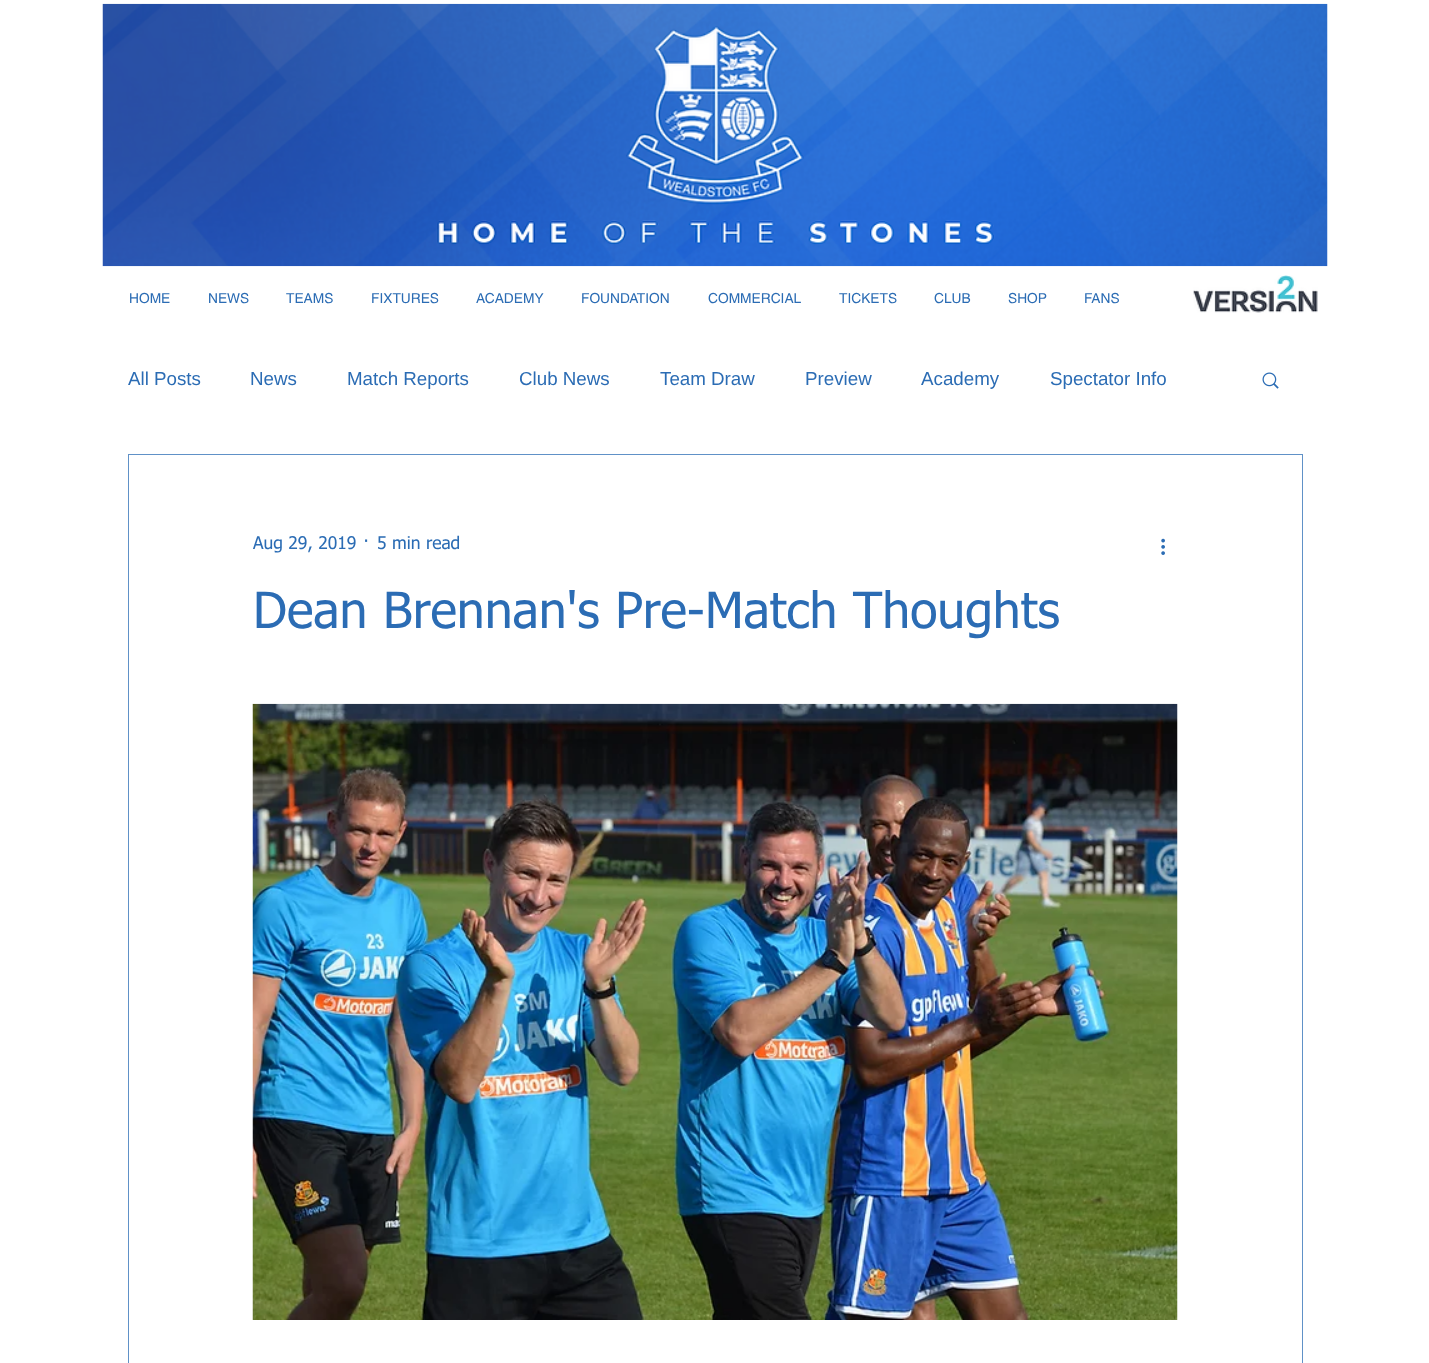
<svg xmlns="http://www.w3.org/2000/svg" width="1429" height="1363">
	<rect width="100%" height="100%" fill="#FFFFFF" />
	<image x="102" y="3" width="1226" height="264" href="assets/img1.png" />
	<g font-family="helvetica" font-size="13.75" fill="#2B6CB4">
		<text x="129" y="303">HOME</text>
		<text x="208" y="303">NEWS</text>
		<text x="286" y="303">TEAMS</text>
		<text x="371" y="303">FIXTURES</text>
		<text x="476" y="303">ACADEMY</text>
		<text x="581" y="303">FOUNDATION</text>
		<text x="708" y="303">COMMERCIAL</text>
		<text x="839" y="303">TICKETS</text>
		<text x="934" y="303">CLUB</text>
		<text x="1008" y="303">SHOP</text>
		<text x="1084" y="303">FANS</text>
	</g>
	<image x="1193" y="275" width="125" height="38" href="assets/img2.png" />
	<g font-family="Liberation Sans" font-size="18.75" fill="#2B6CB4">
		<text x="128" y="385">All Posts</text>
		<text x="250" y="385">News</text>
		<text x="347" y="385">Match Reports</text>
		<text x="519" y="385">Club News</text>
		<text x="660" y="385">Team Draw</text>
		<text x="805" y="385">Preview</text>
		<text x="921" y="385">Academy</text>
		<text x="1050" y="385">Spectator Info</text>
	</g>
	<image x="1262" y="372" width="17" height="17" href="assets/img3.png" />
	<rect x="128.5" y="454.5" width="1174" height="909" fill="none" stroke="#6091C7" />
	<g font-family="tahoma" font-size="17.5" fill="#2B6CB4">
		<text x="253" y="549">Aug 29, 2019</text>
		<text x="363" y="549">·</text>
		<text x="377" y="549">5 min read</text>
	</g>
	<image x="1161" y="538" width="4" height="17" href="assets/img4.png" />
	<text x="253" y="628" font-family="tahoma" font-size="50" fill="#2B6CB4">Dean Brennan's Pre-Match Thoughts</text>
	<image x="252" y="703" width="926" height="617" href="assets/img5.png" />
</svg>
